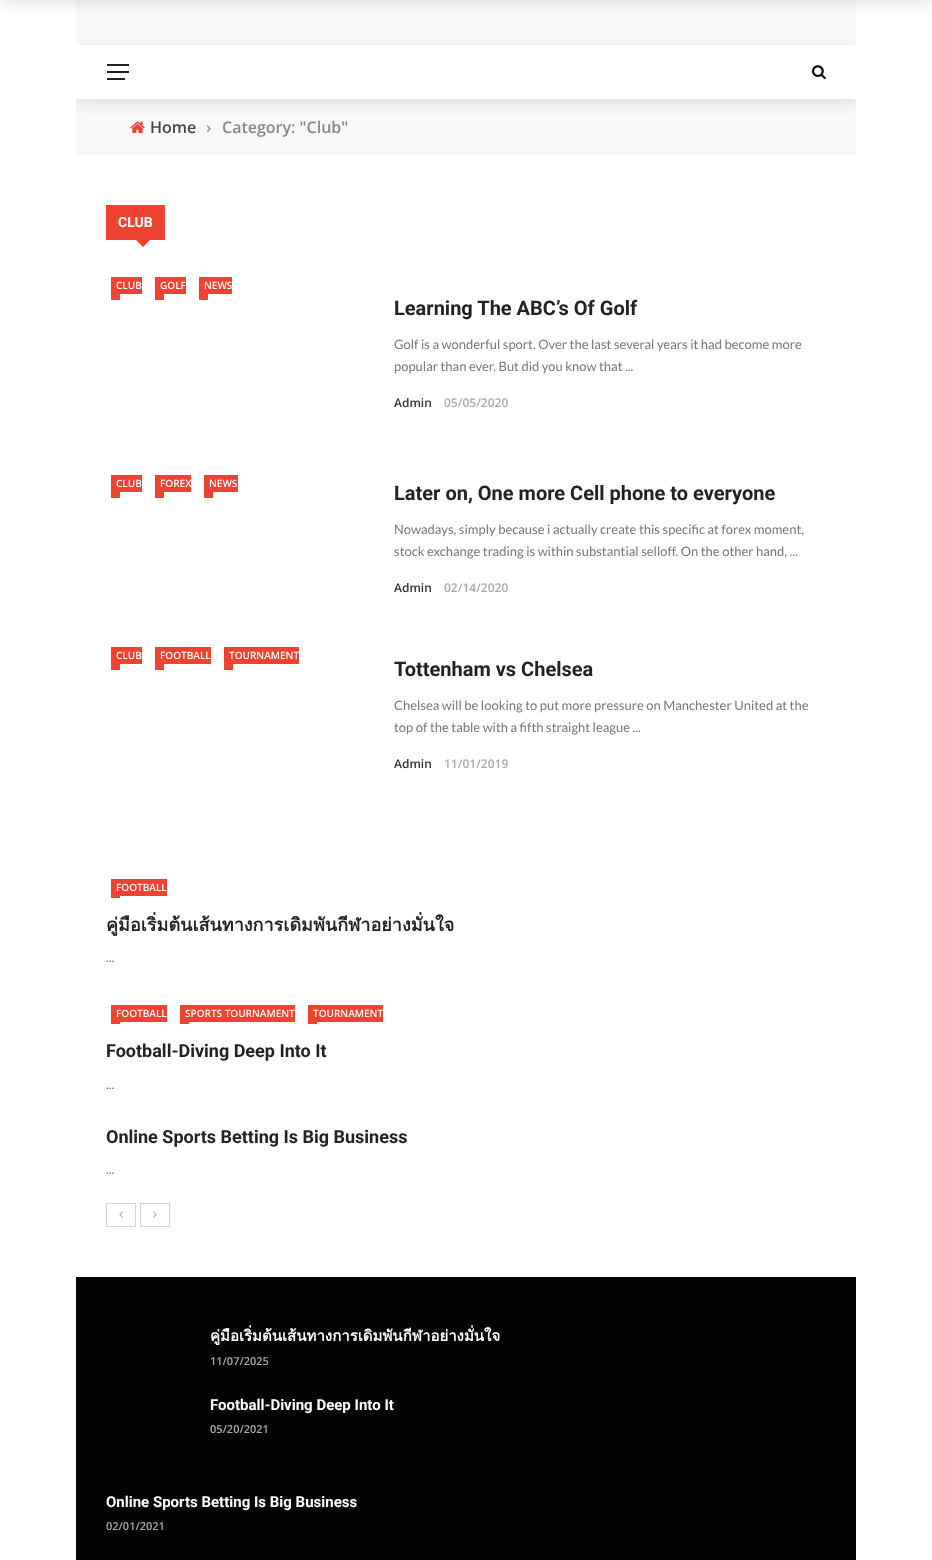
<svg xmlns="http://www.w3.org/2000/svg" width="932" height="1560">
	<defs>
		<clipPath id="clip1"><rect x="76" y="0" width="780" height="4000" /></clipPath>
		<clipPath id="clip2"><path d="M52 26H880V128H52ZM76 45H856V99H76Z" clip-rule="evenodd" /></clipPath>
	</defs>
	<rect width="100%" height="100%" fill="#FFFFFF" />
	<rect x="76" y="0" width="780" height="45" fill="#F8F8F8" />
	<rect x="0" y="-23" width="932" height="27" fill="#000000" fill-opacity="0.1" filter="blur(7.5px)" />
	<rect x="76" y="99" width="780" height="56" fill="#F8F8F8" />
	<image x="130" y="121" width="15" height="12" href="assets/img2.png" />
	<g clip-path="url(#clip1)">
		<g clip-path="url(#clip2)">
			<rect x="76" y="50" width="780" height="54" fill="#000000" fill-opacity="0.1" filter="blur(7.5px)" />
		</g>
	</g>
	<rect x="107" y="64" width="22" height="2" fill="#222222" />
	<rect x="107" y="71" width="22" height="2" fill="#222222" />
	<rect x="107" y="78" width="18" height="2" fill="#222222" />
	<image x="812" y="65" width="14" height="15" href="assets/img1.png" />
	<text x="150" y="133" font-family="Open Sans" font-size="16" font-weight="600" fill="#444444">Home</text>
	<text x="206" y="133" font-family="Open Sans" font-size="16" font-weight="600" fill="#8D97A1">›</text>
	<text x="222" y="133" font-family="Open Sans" font-size="16" font-weight="600" fill="#888888">Category: "Club"</text>
	<rect x="106" y="205" width="59" height="35" fill="#EF4230" />
	<text x="118" y="227" font-family="Roboto" font-size="14" font-weight="700" fill="#FFFFFF">CLUB</text>
	<path d="M136 240H150L143 247Z" fill="#EF4230" />
	<rect x="111" y="277" width="31" height="17" fill="#EF4230" />
	<text x="116" y="289" font-family="Open Sans" font-size="10" font-weight="600" fill="#FFFFFF">CLUB</text>
	<rect x="111" y="294" width="9" height="6" fill="#EF4230" />
	<rect x="155" y="277" width="31" height="17" fill="#EF4230" />
	<text x="160" y="289" font-family="Open Sans" font-size="10" font-weight="600" fill="#FFFFFF">GOLF</text>
	<rect x="155" y="294" width="9" height="6" fill="#EF4230" />
	<rect x="199" y="277" width="33" height="17" fill="#EF4230" />
	<text x="204" y="289" font-family="Open Sans" font-size="10" font-weight="600" fill="#FFFFFF">NEWS</text>
	<rect x="199" y="294" width="9" height="6" fill="#EF4230" />
	<text x="394" y="315" font-family="Roboto" font-size="20" font-weight="700" fill="#222222">Learning The ABC’s Of Golf</text>
	<g font-family="Lato" font-size="13" fill="#777777">
		<text x="394" y="349">Golf is a wonderful sport. Over the last several years it had become more</text>
		<text x="394" y="371">popular than ever. But did you know that ...</text>
	</g>
	<text x="394" y="407" font-family="Open Sans" font-size="12" font-weight="600" fill="#333333">Admin</text>
	<text x="444" y="407" font-family="Open Sans" font-size="12" font-weight="600" fill="#AAAAAA">05/05/2020</text>
	<rect x="111" y="475" width="31" height="17" fill="#EF4230" />
	<text x="116" y="487" font-family="Open Sans" font-size="10" font-weight="600" fill="#FFFFFF">CLUB</text>
	<rect x="111" y="492" width="9" height="6" fill="#EF4230" />
	<rect x="155" y="475" width="36" height="17" fill="#EF4230" />
	<text x="160" y="487" font-family="Open Sans" font-size="10" font-weight="600" fill="#FFFFFF">FOREX</text>
	<rect x="155" y="492" width="9" height="6" fill="#EF4230" />
	<rect x="204" y="475" width="34" height="17" fill="#EF4230" />
	<text x="209" y="487" font-family="Open Sans" font-size="10" font-weight="600" fill="#FFFFFF">NEWS</text>
	<rect x="204" y="492" width="9" height="6" fill="#EF4230" />
	<text x="394" y="500" font-family="Roboto" font-size="20" font-weight="700" fill="#222222">Later on, One more Cell phone to everyone</text>
	<g font-family="Lato" font-size="13" fill="#777777">
		<text x="394" y="534">Nowadays, simply because i actually create this specific at forex moment,</text>
		<text x="394" y="556">stock exchange trading is within substantial selloff. On the other hand, ...</text>
	</g>
	<text x="394" y="592" font-family="Open Sans" font-size="12" font-weight="600" fill="#333333">Admin</text>
	<text x="444" y="592" font-family="Open Sans" font-size="12" font-weight="600" fill="#AAAAAA">02/14/2020</text>
	<rect x="111" y="647" width="31" height="17" fill="#EF4230" />
	<text x="116" y="659" font-family="Open Sans" font-size="10" font-weight="600" fill="#FFFFFF">CLUB</text>
	<rect x="111" y="664" width="9" height="6" fill="#EF4230" />
	<rect x="155" y="647" width="56" height="17" fill="#EF4230" />
	<text x="160" y="659" font-family="Open Sans" font-size="10" font-weight="600" fill="#FFFFFF">FOOTBALL</text>
	<rect x="155" y="664" width="9" height="6" fill="#EF4230" />
	<rect x="224" y="647" width="75" height="17" fill="#EF4230" />
	<text x="229" y="659" font-family="Open Sans" font-size="10" font-weight="600" fill="#FFFFFF">TOURNAMENT</text>
	<rect x="224" y="664" width="9" height="6" fill="#EF4230" />
	<text x="394" y="676" font-family="Roboto" font-size="20" font-weight="700" fill="#222222">Tottenham vs Chelsea</text>
	<g font-family="Lato" font-size="13" fill="#777777">
		<text x="394" y="710">Chelsea will be looking to put more pressure on Manchester United at the</text>
		<text x="394" y="732">top of the table with a fifth straight league ...</text>
	</g>
	<text x="394" y="768" font-family="Open Sans" font-size="12" font-weight="600" fill="#333333">Admin</text>
	<text x="444" y="768" font-family="Open Sans" font-size="12" font-weight="600" fill="#AAAAAA">11/01/2019</text>
	<rect x="111" y="879" width="56" height="17" fill="#EF4230" />
	<text x="116" y="891" font-family="Open Sans" font-size="10" font-weight="600" fill="#FFFFFF">FOOTBALL</text>
	<rect x="111" y="896" width="9" height="2" fill="#EF4230" />
	<text x="106" y="931" font-family="Loma" font-size="18" font-weight="700" fill="#222222">คู่มือเริ่มต้นเส้นทางการเดิมพันกีฬาอย่างมั่นใจ</text>
	<text x="106" y="962" font-family="Lato" font-size="13" fill="#777777">...</text>
	<rect x="111" y="1005" width="56" height="17" fill="#EF4230" />
	<text x="116" y="1017" font-family="Open Sans" font-size="10" font-weight="600" fill="#FFFFFF">FOOTBALL</text>
	<rect x="111" y="1022" width="9" height="2" fill="#EF4230" />
	<rect x="180" y="1005" width="115" height="17" fill="#EF4230" />
	<text x="185" y="1017" font-family="Open Sans" font-size="10" font-weight="600" fill="#FFFFFF">SPORTS TOURNAMENT</text>
	<rect x="180" y="1022" width="9" height="2" fill="#EF4230" />
	<rect x="308" y="1005" width="75" height="17" fill="#EF4230" />
	<text x="313" y="1017" font-family="Open Sans" font-size="10" font-weight="600" fill="#FFFFFF">TOURNAMENT</text>
	<rect x="308" y="1022" width="9" height="2" fill="#EF4230" />
	<text x="106" y="1057" font-family="Roboto" font-size="18" font-weight="700" fill="#222222">Football-Diving Deep Into It</text>
	<text x="106" y="1089" font-family="Lato" font-size="13" fill="#777777">...</text>
	<text x="106" y="1143" font-family="Roboto" font-size="18" font-weight="700" fill="#222222">Online Sports Betting Is Big Business</text>
	<text x="106" y="1174" font-family="Lato" font-size="13" fill="#777777">...</text>
	<rect x="106.5" y="1203.5" width="29" height="23" fill="none" stroke="#D4D4D4" />
	<image x="119" y="1211" width="4" height="7" href="assets/img3.png" />
	<rect x="140.5" y="1203.5" width="29" height="23" fill="none" stroke="#D4D4D4" />
	<image x="153" y="1211" width="4" height="7" href="assets/img4.png" />
	<rect x="76" y="1277" width="780" height="283" fill="#040404" />
	<text x="210" y="1341" font-family="Loma" font-size="15" font-weight="700" fill="#FFFFFF">คู่มือเริ่มต้นเส้นทางการเดิมพันกีฬาอย่างมั่นใจ</text>
	<text x="210" y="1365" font-family="Open Sans" font-size="11" font-weight="600" fill="#AAAAAA">11/07/2025</text>
	<text x="210" y="1410" font-family="Roboto" font-size="15" font-weight="700" fill="#FFFFFF">Football-Diving Deep Into It</text>
	<text x="210" y="1433" font-family="Open Sans" font-size="11" font-weight="600" fill="#AAAAAA">05/20/2021</text>
	<text x="106" y="1507" font-family="Roboto" font-size="15" font-weight="700" fill="#FFFFFF">Online Sports Betting Is Big Business</text>
	<text x="106" y="1530" font-family="Open Sans" font-size="11" font-weight="600" fill="#AAAAAA">02/01/2021</text>
</svg>
